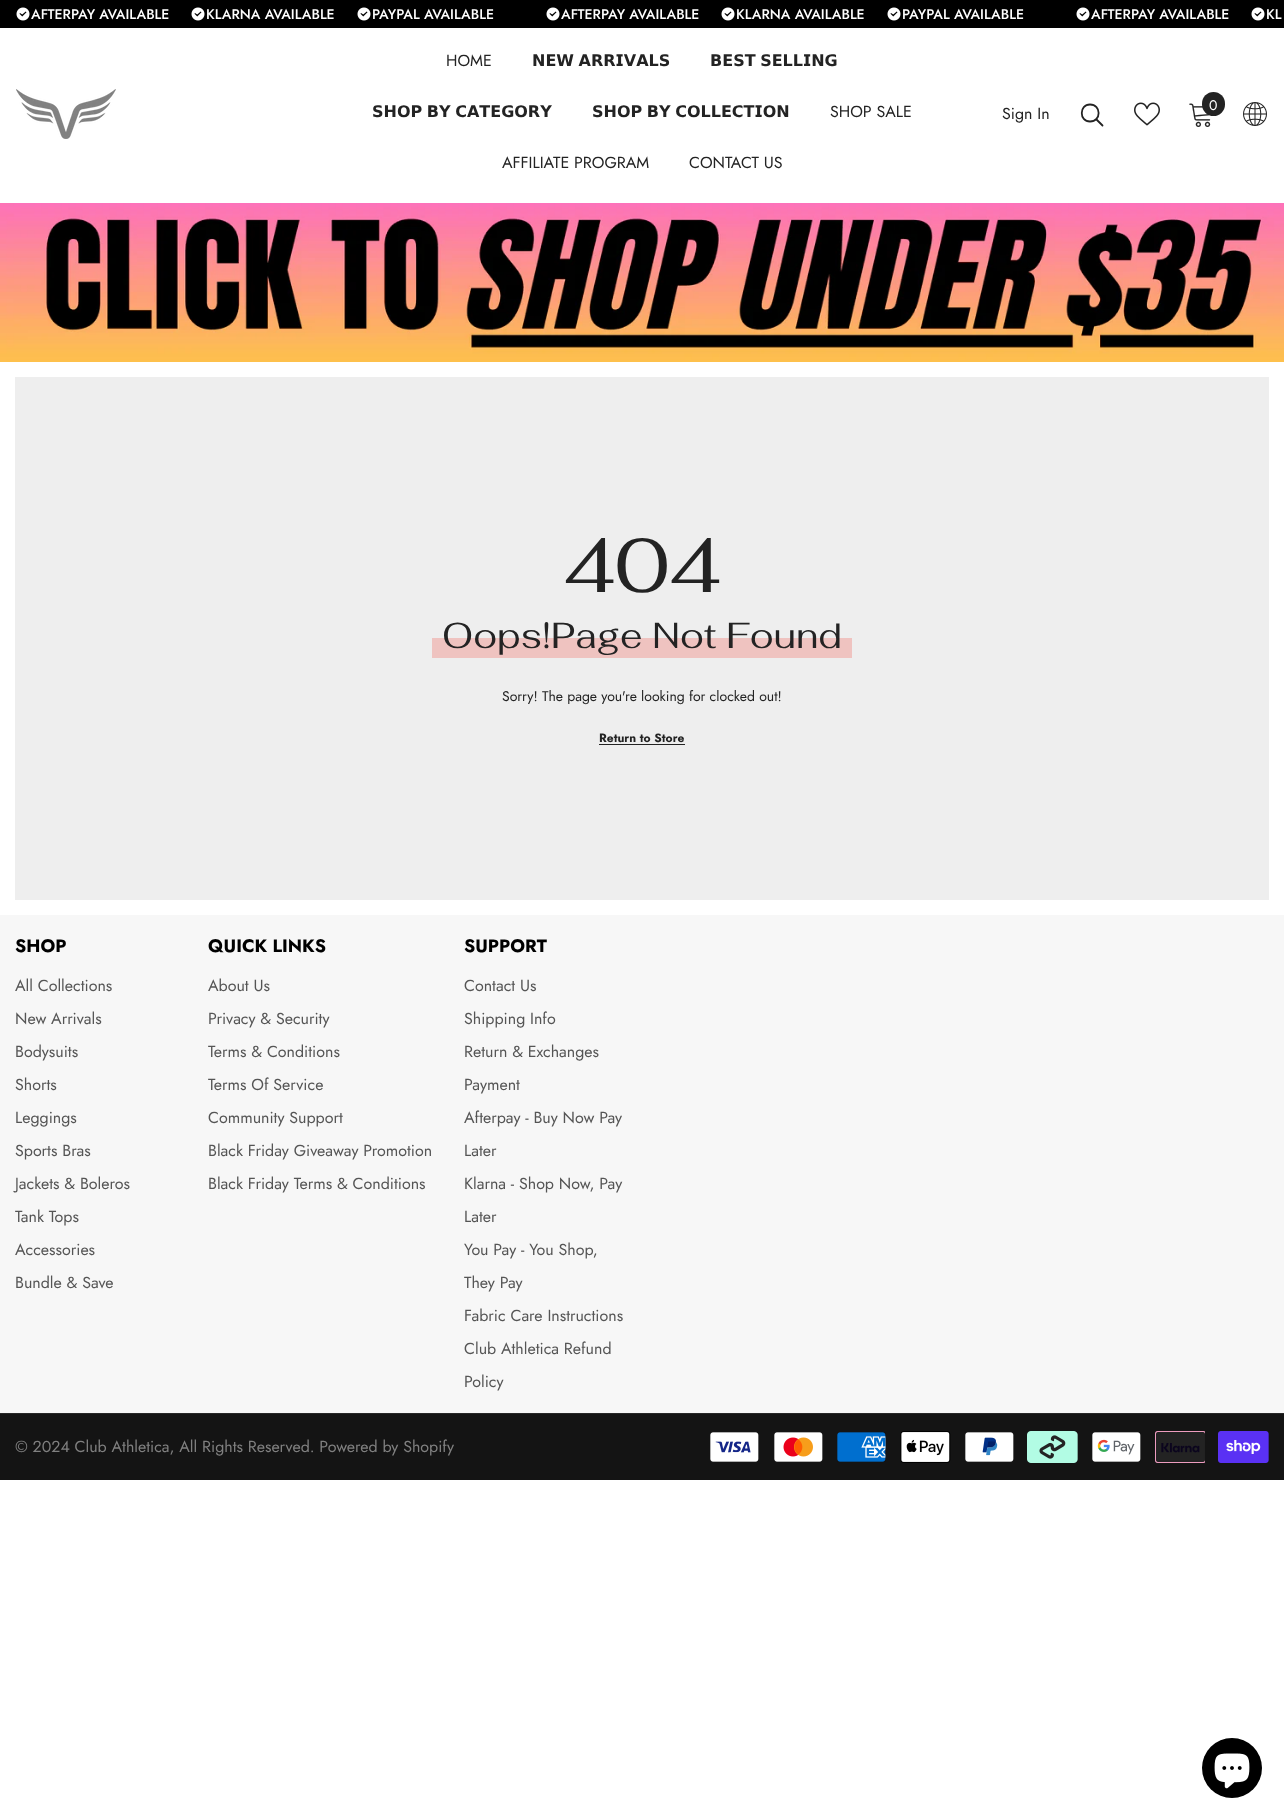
<svg xmlns="http://www.w3.org/2000/svg" width="1284" height="1819">
	<rect width="100%" height="100%" fill="#FFFFFF" />
	<rect x="0" y="0" width="1284" height="28" fill="#000000" />
	<image x="16" y="7" width="14" height="14" href="assets/img1.png" />
	<text x="31" y="19" font-family="Jost" font-size="14" font-weight="500" fill="#FFFFFF">AFTERPAY AVAILABLE</text>
	<image x="191" y="7" width="14" height="14" href="assets/img1.png" />
	<text x="206" y="19" font-family="Jost" font-size="14" font-weight="500" fill="#FFFFFF">KLARNA AVAILABLE</text>
	<image x="357" y="7" width="14" height="14" href="assets/img1.png" />
	<text x="372" y="19" font-family="Jost" font-size="14" font-weight="500" fill="#FFFFFF">PAYPAL AVAILABLE</text>
	<image x="546" y="7" width="14" height="14" href="assets/img1.png" />
	<text x="561" y="19" font-family="Jost" font-size="14" font-weight="500" fill="#FFFFFF">AFTERPAY AVAILABLE</text>
	<image x="721" y="7" width="14" height="14" href="assets/img1.png" />
	<text x="736" y="19" font-family="Jost" font-size="14" font-weight="500" fill="#FFFFFF">KLARNA AVAILABLE</text>
	<image x="887" y="7" width="14" height="14" href="assets/img1.png" />
	<text x="902" y="19" font-family="Jost" font-size="14" font-weight="500" fill="#FFFFFF">PAYPAL AVAILABLE</text>
	<image x="1076" y="7" width="14" height="14" href="assets/img1.png" />
	<text x="1091" y="19" font-family="Jost" font-size="14" font-weight="500" fill="#FFFFFF">AFTERPAY AVAILABLE</text>
	<image x="1251" y="7" width="14" height="14" href="assets/img1.png" />
	<text x="1266" y="19" font-family="Jost" font-size="14" font-weight="500" fill="#FFFFFF">KL</text>
	<image x="16" y="89" width="100" height="50" href="assets/img2.png" />
	<text x="446" y="66" font-family="Jost" font-size="16" fill="#232323">HOME</text>
	<g font-family="DejaVu Sans" font-size="16" font-weight="700" fill="#232323">
		<text x="532" y="66" word-spacing="-1">𝗡𝗘𝗪 𝗔𝗥𝗥𝗜𝗩𝗔𝗟𝗦</text>
		<text x="710" y="66" word-spacing="-1">𝗕𝗘𝗦𝗧 𝗦𝗘𝗟𝗟𝗜𝗡𝗚</text>
		<text x="372" y="117" word-spacing="-1">𝗦𝗛𝗢𝗣 𝗕𝗬 𝗖𝗔𝗧𝗘𝗚𝗢𝗥𝗬</text>
		<text x="592" y="117" word-spacing="-1">𝗦𝗛𝗢𝗣 𝗕𝗬 𝗖𝗢𝗟𝗟𝗘𝗖𝗧𝗜𝗢𝗡</text>
	</g>
	<g font-family="Jost" font-size="16" fill="#232323">
		<text x="830" y="117">SHOP SALE</text>
		<text x="502" y="168">AFFILIATE PROGRAM</text>
		<text x="689" y="168">CONTACT US</text>
		<text x="1002" y="119">Sign In</text>
	</g>
	<path d="M1090 104.5C1079 104.5 1079 121.5 1090 121.5C1101.5 121.5 1101.5 104.5 1090 104.5Z" fill="none" stroke="#232323" stroke-width="1.8" />
	<path d="M1096.5 119.5L1102.5 125.5" fill="none" stroke="#232323" stroke-width="1.8" stroke-linecap="round" />
	<image x="1134" y="102" width="26" height="24" href="assets/img3.png" />
	<image x="1189" y="103" width="22" height="24" href="assets/img4.png" />
	<rect x="1202" y="92" width="23" height="24" rx="11.5" fill="#232323" />
	<text x="1209" y="110" font-family="Jost" font-size="14" fill="#FFFFFF">0</text>
	<image x="1243" y="102" width="24" height="24" href="assets/img5.png" />
	<image x="0" y="203" width="1284" height="159" href="assets/img6.png" />
	<rect x="15" y="377" width="1254" height="523" fill="#EEEEEE" />
	<text x="563" y="592" font-family="Fahkwang" font-size="76" fill="#232323">404</text>
	<rect x="432" y="638" width="420" height="20" fill="#EFC3C0" />
	<text x="442" y="648" font-family="Fahkwang" font-size="36" fill="#232323">Oops!Page Not Found</text>
	<text x="502" y="701" font-family="Jost" font-size="14" fill="#232323">Sorry! The page you're looking for clocked out!</text>
	<text x="599" y="742" font-family="Jost" font-size="12" font-weight="700" fill="#232323">Return to Store</text>
	<rect x="599" y="744" width="86" height="1" fill="#232323" />
	<rect x="0" y="915" width="1284" height="498" fill="#F7F7F7" />
	<text x="15" y="952" font-family="Jost" font-size="18" font-weight="700" fill="#000000">SHOP</text>
	<g font-family="Jost" font-size="16" fill="#555555">
		<text x="15" y="991">All Collections</text>
		<text x="15" y="1024">New Arrivals</text>
		<text x="15" y="1057">Bodysuits</text>
		<text x="15" y="1090">Shorts</text>
		<text x="15" y="1123">Leggings</text>
		<text x="15" y="1156">Sports Bras</text>
		<text x="15" y="1189">Jackets &amp; Boleros</text>
		<text x="15" y="1222">Tank Tops</text>
		<text x="15" y="1255">Accessories</text>
		<text x="15" y="1288">Bundle &amp; Save</text>
	</g>
	<text x="208" y="952" font-family="Jost" font-size="18" font-weight="700" fill="#000000">QUICK LINKS</text>
	<g font-family="Jost" font-size="16" fill="#555555">
		<text x="208" y="991">About Us</text>
		<text x="208" y="1024">Privacy &amp; Security</text>
		<text x="208" y="1057">Terms &amp; Conditions</text>
		<text x="208" y="1090">Terms Of Service</text>
		<text x="208" y="1123">Community Support</text>
		<text x="208" y="1156">Black Friday Giveaway Promotion</text>
		<text x="208" y="1189">Black Friday Terms &amp; Conditions</text>
	</g>
	<text x="464" y="952" font-family="Jost" font-size="18" font-weight="700" fill="#000000">SUPPORT</text>
	<g font-family="Jost" font-size="16" fill="#555555">
		<text x="464" y="991">Contact Us</text>
		<text x="464" y="1024">Shipping Info</text>
		<text x="464" y="1057">Return &amp; Exchanges</text>
		<text x="464" y="1090">Payment</text>
		<text x="464" y="1123">Afterpay - Buy Now Pay</text>
		<text x="464" y="1156">Later</text>
		<text x="464" y="1189">Klarna - Shop Now, Pay</text>
		<text x="464" y="1222">Later</text>
		<text x="464" y="1255">You Pay - You Shop,</text>
		<text x="464" y="1288">They Pay</text>
		<text x="464" y="1321">Fabric Care Instructions</text>
		<text x="464" y="1354">Club Athletica Refund</text>
		<text x="464" y="1387">Policy</text>
	</g>
	<rect x="0" y="1414" width="1284" height="66" fill="#141414" />
	<rect x="0" y="1413" width="1284" height="1" fill="#282828" />
	<text x="15" y="1452" font-family="Jost" font-size="16" fill="#808080">© 2024 Club Athletica, All Rights Reserved. Powered by Shopify</text>
	<image x="710" y="1432" width="49" height="30" href="assets/img7.png" />
	<image x="774" y="1432" width="49" height="30" href="assets/img8.png" />
	<image x="837" y="1432" width="49" height="30" href="assets/img9.png" />
	<image x="900" y="1431" width="51" height="32" href="assets/img10.png" />
	<image x="965" y="1432" width="49" height="30" href="assets/img11.png" />
	<image x="1027" y="1431" width="51" height="32" href="assets/img12.png" />
	<image x="1092" y="1432" width="49" height="30" href="assets/img13.png" />
	<image x="1155" y="1431" width="50" height="32" href="assets/img14.png" />
	<image x="1218" y="1431" width="51" height="32" href="assets/img15.png" />
	<circle cx="1232" cy="1768" r="30" fill="#000000" />
	<image x="1214" y="1753" width="36" height="36" href="assets/img16.png" />
</svg>
